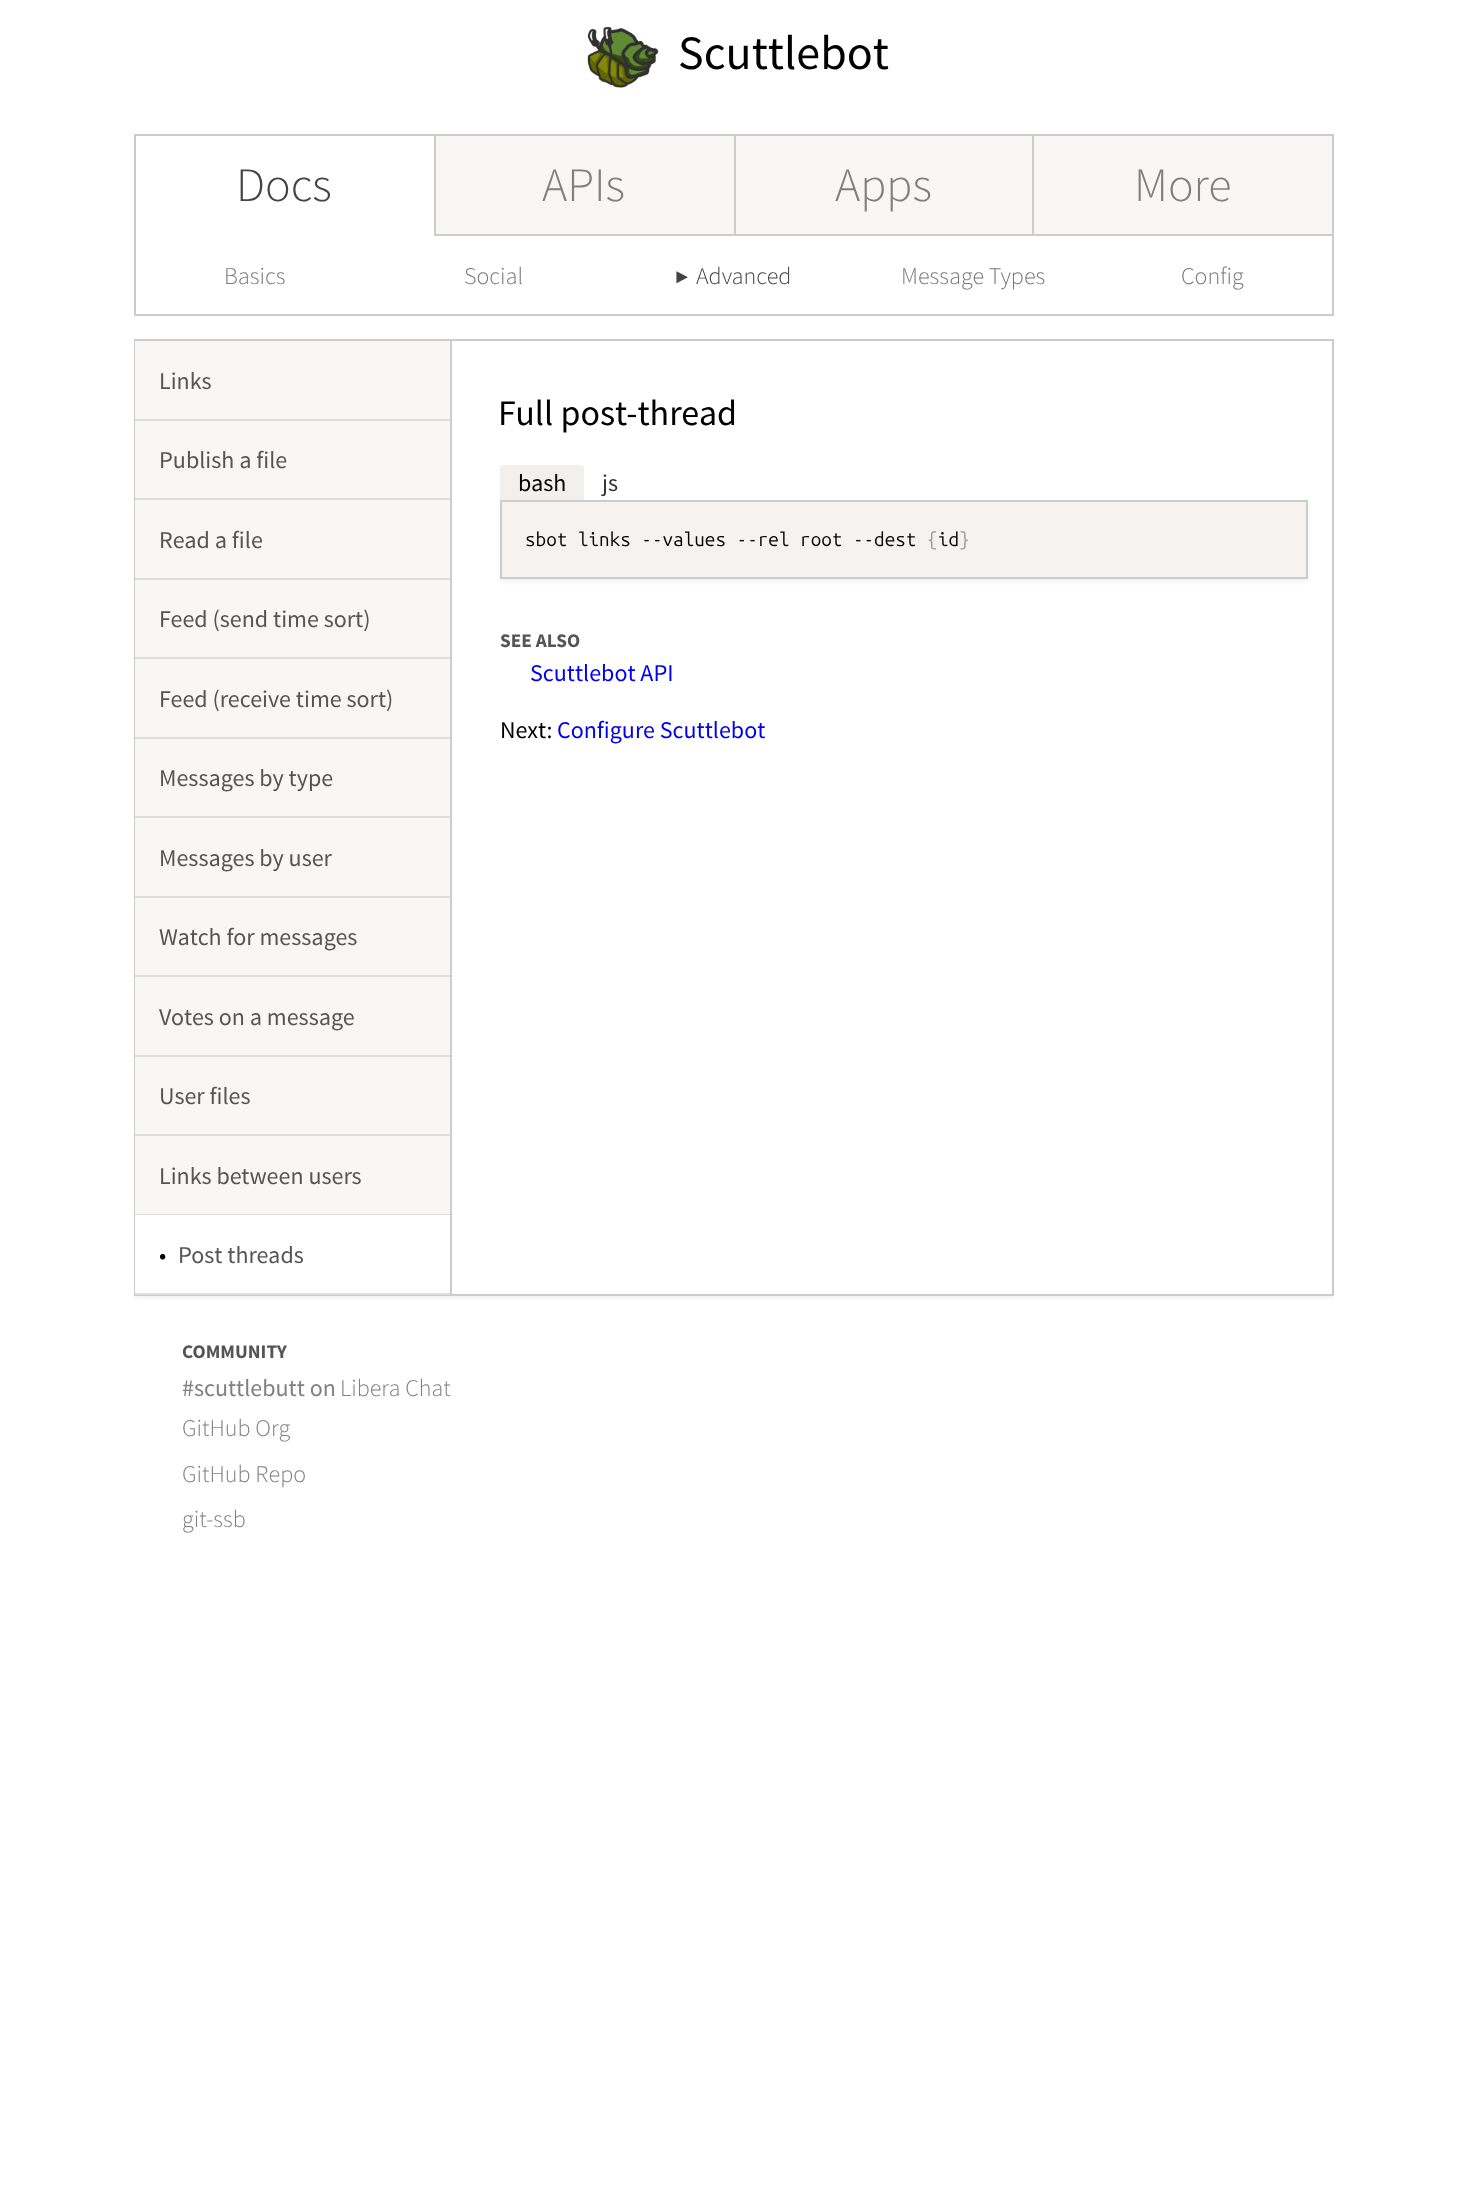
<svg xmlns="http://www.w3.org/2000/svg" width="1466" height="2195">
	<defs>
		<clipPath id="clip1"><rect x="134" y="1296" width="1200" height="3" /></clipPath>
	</defs>
	<rect width="100%" height="100%" fill="#FFFFFF" />
	<image x="587" y="26" width="72" height="62" href="assets/img1.png" />
	<text x="678" y="69" font-family="Source Sans Pro" font-size="48" fill="#000000">Scuttlebot</text>
	<rect x="134" y="134" width="898" height="2" fill="#CCCCCC" />
	<rect x="134" y="134" width="2" height="102" fill="#CCCCCC" />
	<text x="236" y="201" font-family="Source Sans Pro" font-size="48" font-weight="300" fill="#444444">Docs</text>
	<rect x="436" y="136" width="298" height="98" fill="#F9F7F6" />
	<rect x="434" y="234" width="598" height="2" fill="#CCCCCC" />
	<rect x="434" y="134" width="2" height="102" fill="#CCCCCC" />
	<text x="542" y="201" font-family="Source Sans Pro" font-size="48" font-weight="300" fill="#808080">APIs</text>
	<rect x="736" y="136" width="296" height="98" fill="#F9F7F6" />
	<rect x="734" y="134" width="2" height="102" fill="#CCCCCC" />
	<text x="835" y="201" font-family="Source Sans Pro" font-size="48" font-weight="300" fill="#808080">Apps</text>
	<rect x="1033" y="135" width="300" height="100" fill="#F9F7F6" stroke="#CCCCCC" stroke-width="2" />
	<text x="1134" y="201" font-family="Source Sans Pro" font-size="48" font-weight="300" fill="#808080">More</text>
	<rect x="1332" y="236" width="2" height="79" fill="#CCCCCC" />
	<rect x="134" y="314" width="1200" height="2" fill="#CCCCCC" />
	<rect x="134" y="236" width="2" height="79" fill="#CCCCCC" />
	<g font-family="Source Sans Pro" font-size="24" font-weight="300" fill="#777777">
		<text x="224" y="284">Basics</text>
		<text x="464" y="284">Social</text>
	</g>
	<g font-family="Source Sans Pro" font-size="24" font-weight="300" fill="#444444">
		<text x="675" y="284">▶</text>
		<text x="696" y="284">Advanced</text>
	</g>
	<g font-family="Source Sans Pro" font-size="24" font-weight="300" fill="#777777">
		<text x="901" y="284">Message Types</text>
		<text x="1181" y="284">Config</text>
	</g>
	<g clip-path="url(#clip1)">
		<rect x="134" y="342" width="1200" height="957" fill="#000000" fill-opacity="0.05" filter="blur(2px)" />
	</g>
	<rect x="135" y="340" width="1198" height="955" fill="none" stroke="#CCCCCC" stroke-width="2" />
	<rect x="135" y="341" width="315" height="873" fill="#F9F7F6" />
	<rect x="450" y="341" width="2" height="954" fill="#CCCCCC" />
	<rect x="135" y="419" width="315" height="2" fill="#DDDDDD" />
	<text x="159" y="389" font-family="Source Sans Pro" font-size="24" fill="#555555">Links</text>
	<rect x="135" y="498" width="315" height="2" fill="#DDDDDD" />
	<text x="159" y="468" font-family="Source Sans Pro" font-size="24" fill="#555555">Publish a file</text>
	<rect x="135" y="578" width="315" height="2" fill="#DDDDDD" />
	<text x="159" y="548" font-family="Source Sans Pro" font-size="24" fill="#555555">Read a file</text>
	<rect x="135" y="657" width="315" height="2" fill="#DDDDDD" />
	<text x="159" y="627" font-family="Source Sans Pro" font-size="24" fill="#555555">Feed (send time sort)</text>
	<rect x="135" y="737" width="315" height="2" fill="#DDDDDD" />
	<text x="159" y="707" font-family="Source Sans Pro" font-size="24" fill="#555555">Feed (receive time sort)</text>
	<rect x="135" y="816" width="315" height="2" fill="#DDDDDD" />
	<text x="159" y="786" font-family="Source Sans Pro" font-size="24" fill="#555555">Messages by type</text>
	<rect x="135" y="896" width="315" height="2" fill="#DDDDDD" />
	<text x="159" y="866" font-family="Source Sans Pro" font-size="24" fill="#555555">Messages by user</text>
	<rect x="135" y="975" width="315" height="2" fill="#DDDDDD" />
	<text x="159" y="945" font-family="Source Sans Pro" font-size="24" fill="#555555">Watch for messages</text>
	<rect x="135" y="1055" width="315" height="2" fill="#DDDDDD" />
	<text x="159" y="1025" font-family="Source Sans Pro" font-size="24" fill="#555555">Votes on a message</text>
	<rect x="135" y="1134" width="315" height="2" fill="#DDDDDD" />
	<text x="159" y="1104" font-family="Source Sans Pro" font-size="24" fill="#555555">User files</text>
	<rect x="135" y="1214" width="315" height="1" fill="#DDDDDD" />
	<text x="159" y="1184" font-family="Source Sans Pro" font-size="24" fill="#555555">Links between users</text>
	<rect x="135" y="1215" width="1" height="78" fill="#FFFFFF" />
	<rect x="135" y="1293" width="315" height="2" fill="#DDDDDD" />
	<text x="159" y="1263" font-family="Source Sans Pro" font-size="24" fill="#000000">•</text>
	<text x="178" y="1263" font-family="Source Sans Pro" font-size="24" fill="#555555">Post threads</text>
	<text x="498" y="425" font-family="Source Sans Pro" font-size="36" fill="#000000">Full post-thread</text>
	<rect x="500" y="503" width="808" height="79" fill="#000000" fill-opacity="0.05" filter="blur(2px)" />
	<path d="M503 465H581C582.5 465 584 466.5 584 468V500H500V468C500 466.5 501.5 465 503 465Z" fill="#F3EFEC" />
	<text x="518" y="491" font-family="Source Sans Pro" font-size="24" fill="#000000">bash</text>
	<text x="602" y="491" font-family="Source Sans Pro" font-size="24" fill="#333333">js</text>
	<rect x="501" y="501" width="806" height="77" fill="#F5F2F0" stroke="#CCCCCC" stroke-width="2" />
	<text x="525" y="546" font-family="Ubuntu Mono" font-size="18.9" fill="#000000">sbot links --values --rel root --dest</text>
	<text x="927" y="546" font-family="Ubuntu Mono" font-size="18.9" fill="#999999">{</text>
	<text x="938" y="546" font-family="Ubuntu Mono" font-size="18.9" fill="#000000">id</text>
	<text x="959" y="546" font-family="Ubuntu Mono" font-size="18.9" fill="#999999">}</text>
	<text x="500" y="647" font-family="Source Sans Pro" font-size="19.25" font-weight="700" fill="#555555">SEE ALSO</text>
	<text x="530" y="681" font-family="Source Sans Pro" font-size="24" fill="#0000EE">Scuttlebot API</text>
	<text x="500" y="738" font-family="Source Sans Pro" font-size="24" fill="#000000">Next:</text>
	<text x="557" y="738" font-family="Source Sans Pro" font-size="24" fill="#0000EE">Configure Scuttlebot</text>
	<text x="182" y="1358" font-family="Source Sans Pro" font-size="19.25" font-weight="700" fill="#555555">COMMUNITY</text>
	<text x="182" y="1396" font-family="Source Sans Pro" font-size="24" fill="#808080">#scuttlebutt on</text>
	<g font-family="Source Sans Pro" font-size="24" font-weight="300" fill="#808080">
		<text x="340" y="1396">Libera Chat</text>
		<text x="182" y="1436">GitHub Org</text>
		<text x="182" y="1482">GitHub Repo</text>
		<text x="182" y="1527">git-ssb</text>
	</g>
</svg>
